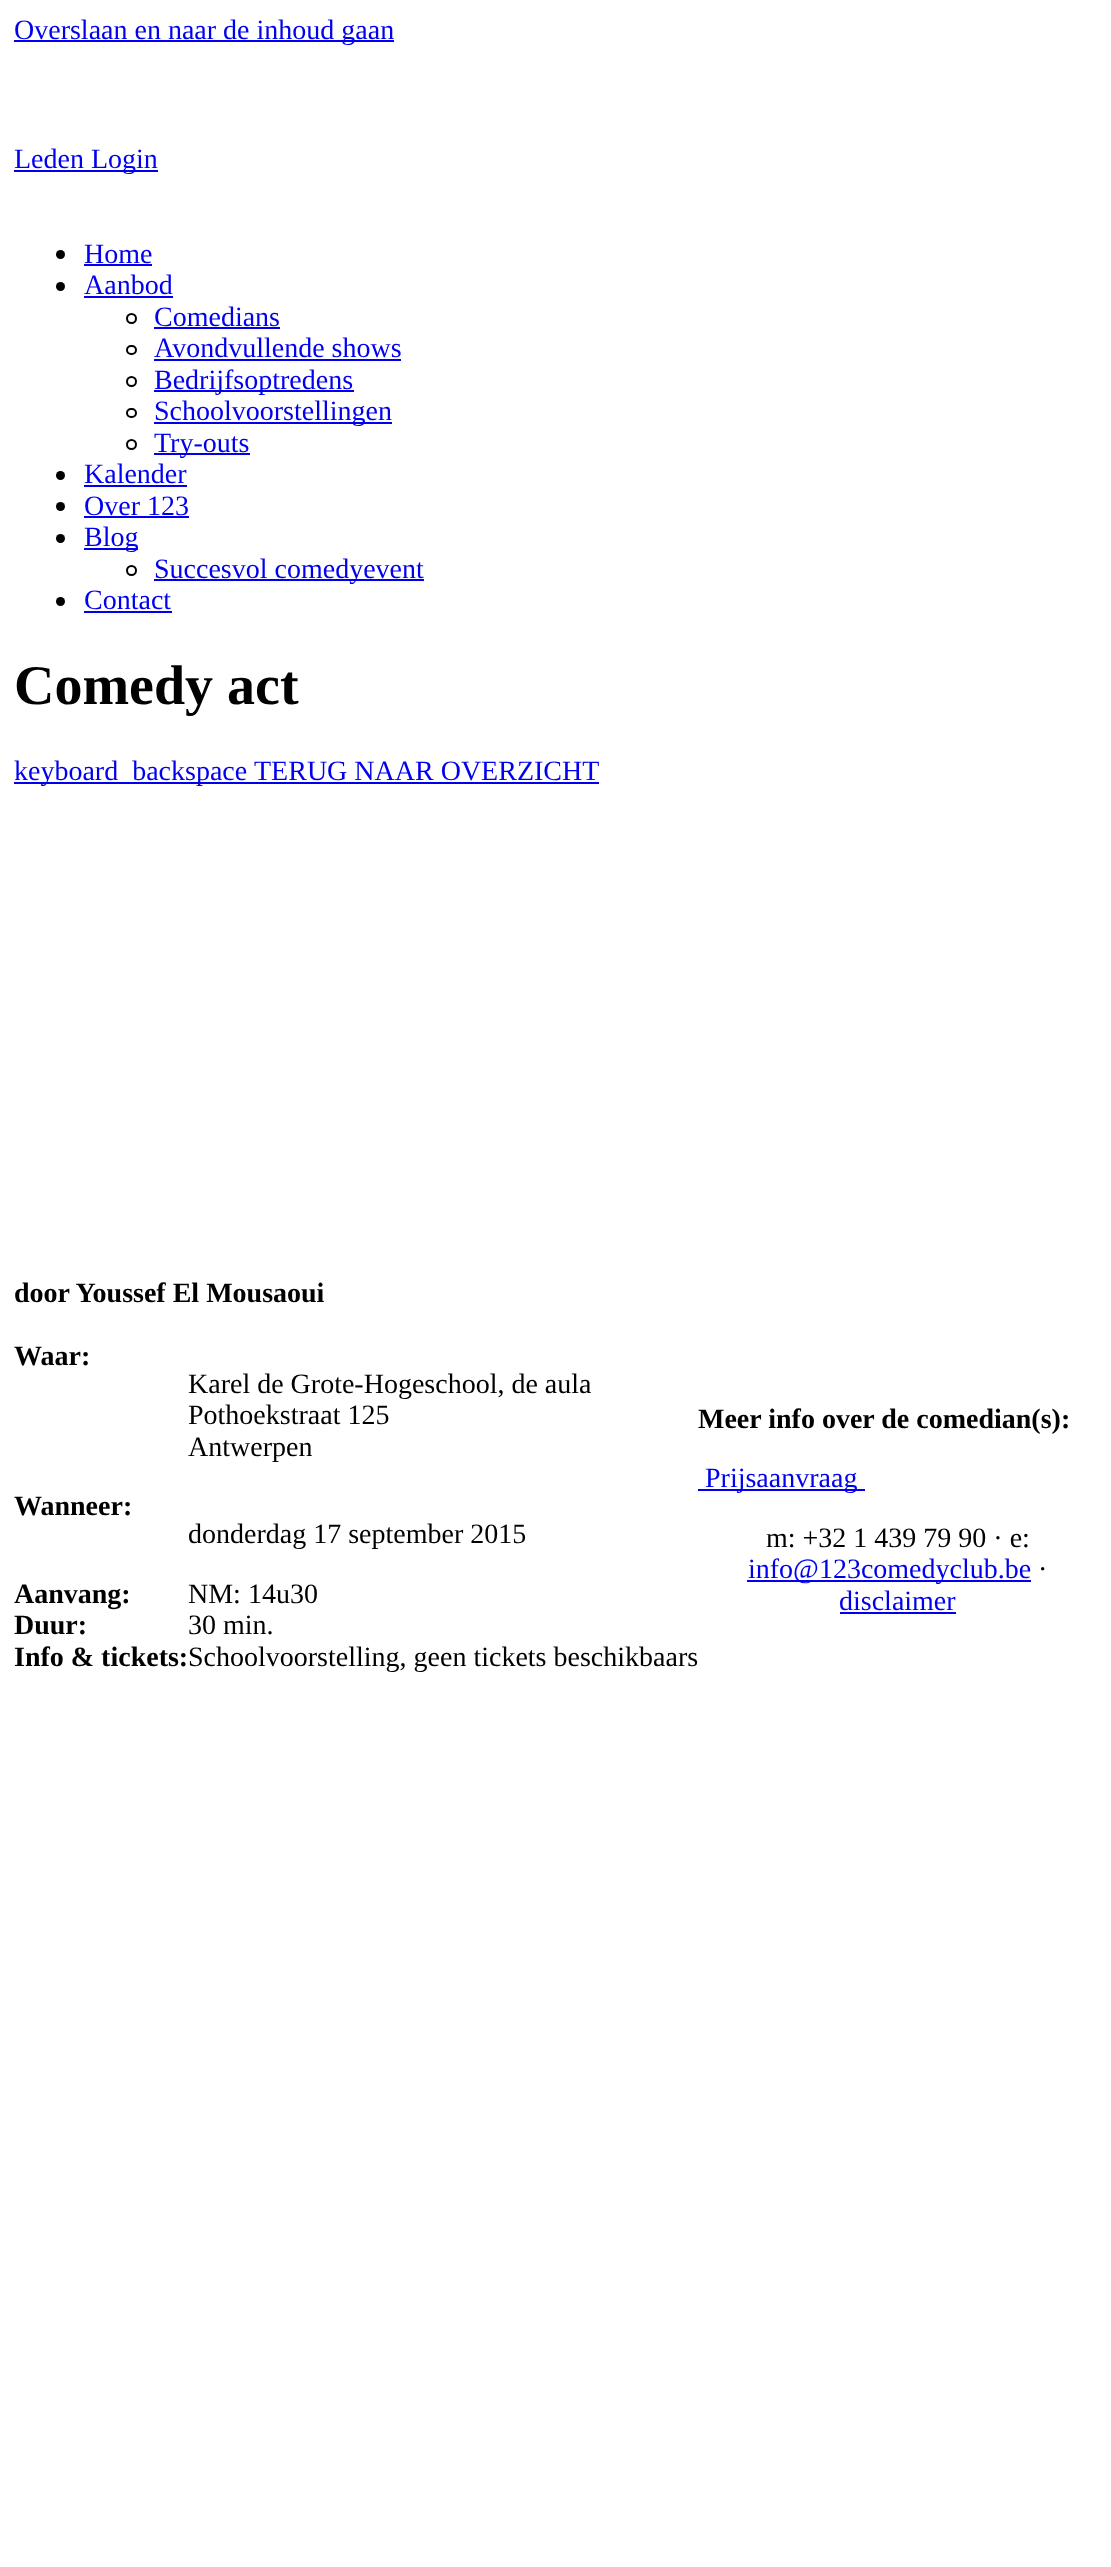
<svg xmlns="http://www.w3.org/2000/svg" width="1111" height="2567">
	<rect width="100%" height="100%" fill="#FFFFFF" />
	<rect x="14" y="40" width="380" height="2" fill="#0000EE" />
	<text x="14" y="39" font-family="Liberation Serif" font-size="28" fill="#0000EE">Overslaan en naar de inhoud gaan</text>
	<rect x="14" y="170" width="144" height="2" fill="#0000EE" />
	<text x="14" y="168" font-family="Liberation Serif" font-size="28" fill="#0000EE">Leden Login</text>
	<circle cx="60.5" cy="254.5" r="4.5" fill="#000000" />
	<text x="84" y="263" font-family="Liberation Serif" font-size="28" fill="#0000EE">Home</text>
	<rect x="84" y="264" width="68" height="2" fill="#0000EE" />
	<circle cx="60.5" cy="286.5" r="4.5" fill="#000000" />
	<text x="84" y="294" font-family="Liberation Serif" font-size="28" fill="#0000EE">Aanbod</text>
	<rect x="84" y="296" width="89" height="2" fill="#0000EE" />
	<circle cx="131.5" cy="318.5" r="4.5" fill="none" stroke="#000000" stroke-width="2" />
	<text x="154" y="326" font-family="Liberation Serif" font-size="28" fill="#0000EE">Comedians</text>
	<rect x="154" y="327" width="126" height="2" fill="#0000EE" />
	<rect x="127" y="346" width="9" height="8" rx="4" fill="none" stroke="#000000" stroke-width="2" />
	<text x="154" y="357" font-family="Liberation Serif" font-size="28" fill="#0000EE">Avondvullende shows</text>
	<rect x="154" y="359" width="247" height="2" fill="#0000EE" />
	<circle cx="131.5" cy="381.5" r="4.5" fill="none" stroke="#000000" stroke-width="2" />
	<rect x="154" y="390" width="200" height="2" fill="#0000EE" />
	<text x="154" y="389" font-family="Liberation Serif" font-size="28" fill="#0000EE">Bedrijfsoptredens</text>
	<rect x="127" y="409" width="9" height="8" rx="4" fill="none" stroke="#000000" stroke-width="2" />
	<rect x="154" y="422" width="238" height="2" fill="#0000EE" />
	<text x="154" y="420" font-family="Liberation Serif" font-size="28" fill="#0000EE">Schoolvoorstellingen</text>
	<circle cx="131.5" cy="444.5" r="4.5" fill="none" stroke="#000000" stroke-width="2" />
	<rect x="154" y="453" width="96" height="2" fill="#0000EE" />
	<text x="154" y="452" font-family="Liberation Serif" font-size="28" fill="#0000EE">Try-outs</text>
	<circle cx="60.5" cy="475.5" r="4.5" fill="#000000" />
	<text x="84" y="483" font-family="Liberation Serif" font-size="28" fill="#0000EE">Kalender</text>
	<rect x="84" y="485" width="103" height="2" fill="#0000EE" />
	<circle cx="60.5" cy="506.5" r="4.5" fill="#000000" />
	<text x="84" y="515" font-family="Liberation Serif" font-size="28" fill="#0000EE">Over 123</text>
	<rect x="84" y="516" width="105" height="2" fill="#0000EE" />
	<circle cx="60.5" cy="538.5" r="4.5" fill="#000000" />
	<rect x="84" y="548" width="54" height="2" fill="#0000EE" />
	<text x="84" y="546" font-family="Liberation Serif" font-size="28" fill="#0000EE">Blog</text>
	<circle cx="131.5" cy="570.5" r="4.5" fill="none" stroke="#000000" stroke-width="2" />
	<rect x="154" y="579" width="270" height="2" fill="#0000EE" />
	<text x="154" y="578" font-family="Liberation Serif" font-size="28" fill="#0000EE">Succesvol comedyevent</text>
	<circle cx="60.5" cy="601.5" r="4.5" fill="#000000" />
	<text x="84" y="609" font-family="Liberation Serif" font-size="28" fill="#0000EE">Contact</text>
	<rect x="84" y="611" width="88" height="2" fill="#0000EE" />
	<text x="14" y="704" font-family="Liberation Serif" font-size="56" font-weight="700" fill="#000000">Comedy act</text>
	<rect x="14" y="782" width="585" height="2" fill="#0000EE" />
	<g font-family="Liberation Serif" font-size="28" fill="#0000EE">
		<text x="14" y="780">keyboard_backspace</text>
		<text x="254" y="780">TERUG NAAR OVERZICHT</text>
	</g>
	<g font-family="Liberation Serif" font-size="28" font-weight="700" fill="#000000">
		<text x="14" y="1302">door Youssef El Mousaoui</text>
		<text x="14" y="1365">Waar:</text>
	</g>
	<g font-family="Liberation Serif" font-size="28" fill="#000000">
		<text x="188" y="1393">Karel de Grote-Hogeschool, de aula</text>
		<text x="188" y="1424">Pothoekstraat 125</text>
		<text x="188" y="1456">Antwerpen</text>
	</g>
	<text x="14" y="1515" font-family="Liberation Serif" font-size="28" font-weight="700" fill="#000000">Wanneer:</text>
	<text x="188" y="1543" font-family="Liberation Serif" font-size="28" fill="#000000">donderdag 17 september 2015</text>
	<text x="14" y="1603" font-family="Liberation Serif" font-size="28" font-weight="700" fill="#000000">Aanvang:</text>
	<text x="188" y="1603" font-family="Liberation Serif" font-size="28" fill="#000000">NM: 14u30</text>
	<text x="14" y="1634" font-family="Liberation Serif" font-size="28" font-weight="700" fill="#000000">Duur:</text>
	<text x="188" y="1634" font-family="Liberation Serif" font-size="28" fill="#000000">30 min.</text>
	<text x="14" y="1666" font-family="Liberation Serif" font-size="28" font-weight="700" fill="#000000">Info &amp; tickets:</text>
	<text x="188" y="1666" font-family="Liberation Serif" font-size="28" fill="#000000">Schoolvoorstelling, geen tickets beschikbaars</text>
	<text x="698" y="1428" font-family="Liberation Serif" font-size="28" font-weight="700" fill="#000000">Meer info over de comedian(s):</text>
	<rect x="698" y="1489" width="167" height="2" fill="#0000EE" />
	<text x="705" y="1487" font-family="Liberation Serif" font-size="28" fill="#0000EE">Prijsaanvraag</text>
	<text x="766" y="1547" font-family="Liberation Serif" font-size="28" fill="#000000">m: +32 1 439 79 90 · e:</text>
	<rect x="747" y="1580" width="284" height="2" fill="#0000EE" />
	<text x="748" y="1578" font-family="Liberation Serif" font-size="28" fill="#0000EE">info@123comedyclub.be</text>
	<text x="1038" y="1578" font-family="Liberation Serif" font-size="28" fill="#000000">·</text>
	<text x="839" y="1610" font-family="Liberation Serif" font-size="28" fill="#0000EE">disclaimer</text>
	<rect x="840" y="1612" width="116" height="2" fill="#0000EE" />
</svg>
